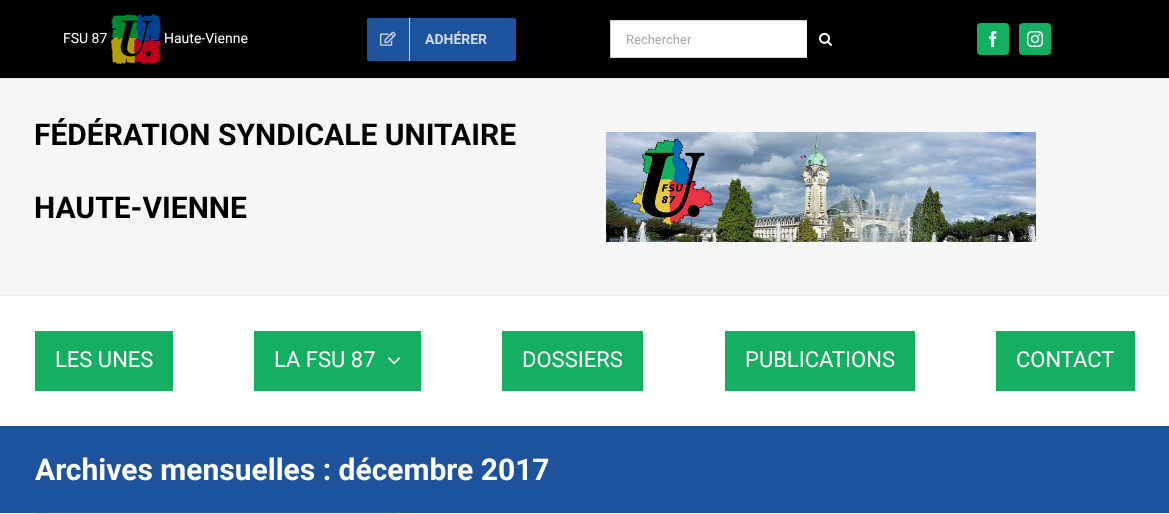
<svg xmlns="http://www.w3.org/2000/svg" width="1169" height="514">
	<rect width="100%" height="100%" fill="#FFFFFF" />
	<rect x="0" y="0" width="1169" height="78" fill="#000000" />
	<rect x="0" y="78" width="1169" height="1" fill="#EAE9E9" />
	<text x="63" y="43" font-family="Roboto" font-size="14" fill="#FFFFFF">FSU 87</text>
	<image x="111" y="14" width="50" height="50" href="assets/img1.png" />
	<text x="164" y="43" font-family="Roboto" font-size="14" fill="#FFFFFF">Haute-Vienne</text>
	<rect x="367" y="18" width="149" height="43" rx="2" fill="#1D529D" />
	<rect x="409" y="18" width="1" height="43" fill="#D2DCEB" />
	<image x="380" y="31" width="16" height="15" href="assets/img2.png" />
	<text x="425" y="44" font-family="Roboto" font-size="14" font-weight="700" fill="#D2DCEB">ADHÉRER</text>
	<rect x="611" y="21" width="196" height="36" fill="#FFFFFF" />
	<rect x="610" y="20" width="197" height="1" fill="#D2D2D2" />
	<rect x="610" y="57" width="197" height="1" fill="#D2D2D2" />
	<rect x="610" y="20" width="1" height="38" fill="#D2D2D2" />
	<text x="626" y="44" font-family="Roboto" font-size="13" fill="#AAA9A9">Rechercher</text>
	<image x="819" y="32" width="13" height="14" href="assets/img3.png" />
	<rect x="977" y="23" width="32" height="32" rx="4" fill="#14AF61" />
	<image x="989" y="31" width="8" height="16" href="assets/img4.png" />
	<rect x="1019" y="23" width="32" height="32" rx="4" fill="#14AF61" />
	<image x="1027" y="31" width="16" height="16" href="assets/img5.png" />
	<rect x="0" y="79" width="1169" height="216" fill="#F6F6F6" />
	<rect x="0" y="295" width="1169" height="1" fill="#E8EDF0" />
	<g font-family="Roboto" font-size="30" font-weight="700" fill="#000000">
		<text x="34" y="145">FÉDÉRATION SYNDICALE UNITAIRE</text>
		<text x="34" y="218">HAUTE-VIENNE</text>
	</g>
	<image x="606" y="132" width="430" height="110" href="assets/img6.png" />
	<rect x="35" y="331" width="138" height="60" fill="#14AF61" />
	<text x="55" y="367" font-family="Roboto" font-size="22" fill="#FFFFFF">LES UNES</text>
	<rect x="254" y="331" width="167" height="60" fill="#14AF61" />
	<text x="274" y="367" font-family="Roboto" font-size="22" fill="#FFFFFF">LA FSU 87</text>
	<image x="388" y="357" width="13" height="8" href="assets/img7.png" />
	<rect x="502" y="331" width="141" height="60" fill="#14AF61" />
	<text x="522" y="367" font-family="Roboto" font-size="22" fill="#FFFFFF">DOSSIERS</text>
	<rect x="725" y="331" width="190" height="60" fill="#14AF61" />
	<text x="745" y="367" font-family="Roboto" font-size="22" fill="#FFFFFF">PUBLICATIONS</text>
	<rect x="996" y="331" width="139" height="60" fill="#14AF61" />
	<text x="1016" y="367" font-family="Roboto" font-size="22" fill="#FFFFFF">CONTACT</text>
	<rect x="0" y="426" width="1169" height="87" fill="#1D529D" />
	<text x="35" y="480" font-family="Roboto" font-size="30" font-weight="700" fill="#FFFFFF">Archives mensuelles : décembre 2017</text>
	<rect x="35" y="513" width="363" height="1" fill="#EBEAEA" />
</svg>
